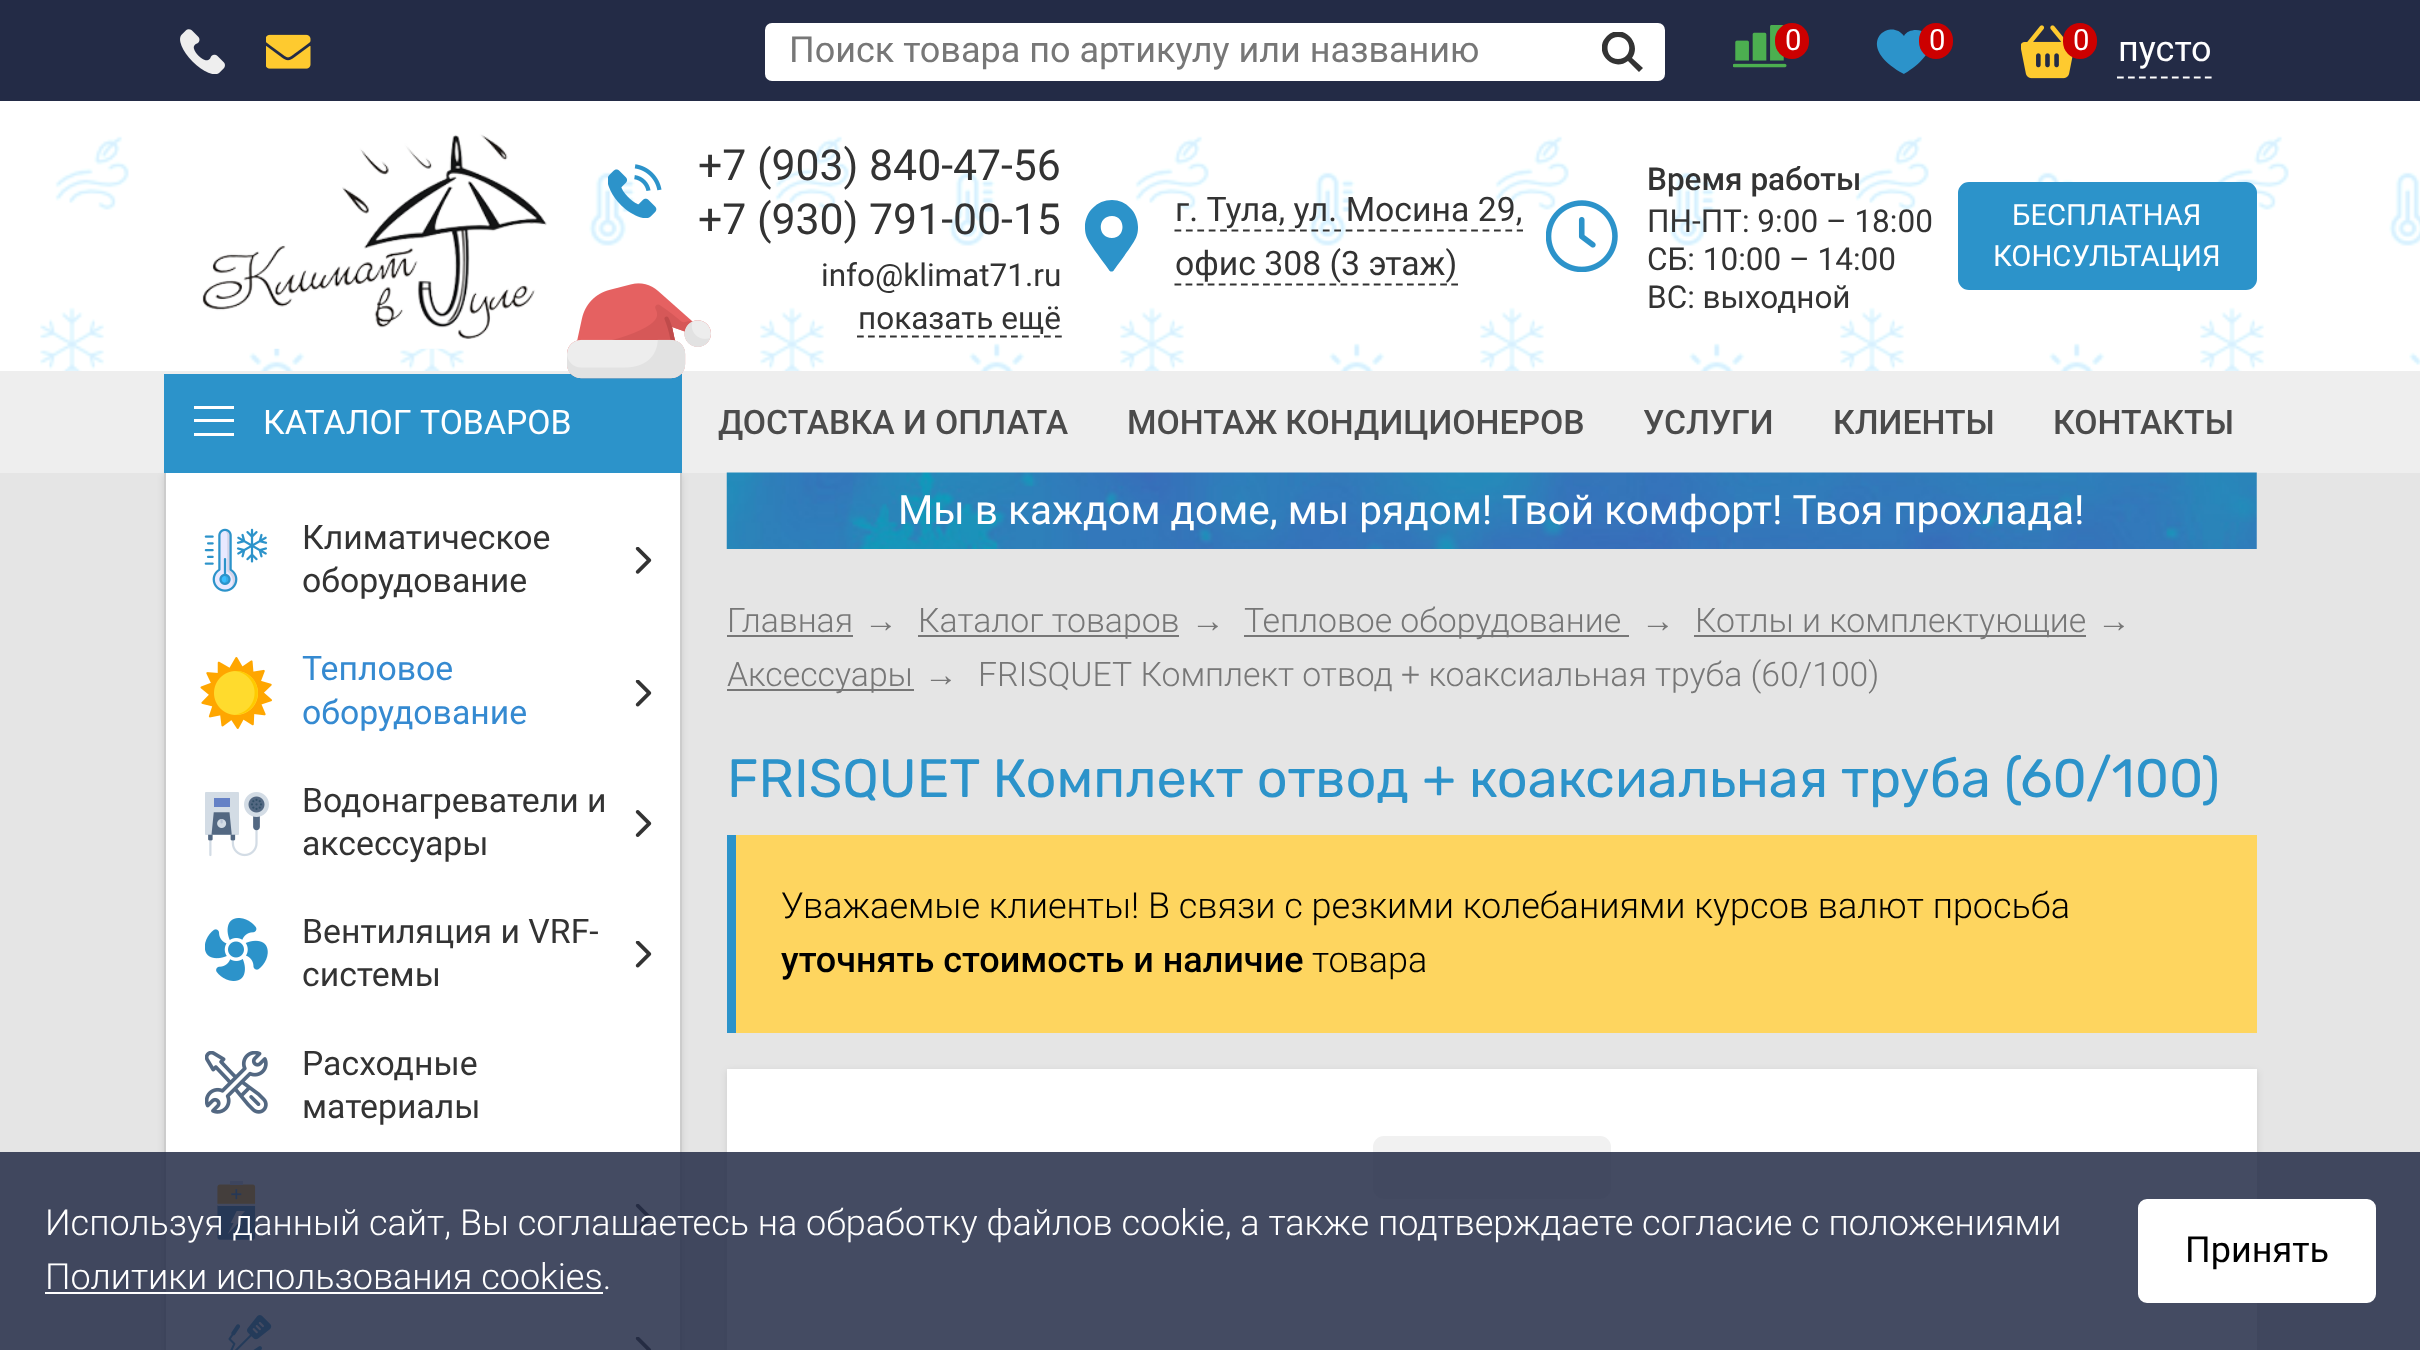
<svg xmlns="http://www.w3.org/2000/svg" width="2420" height="1350">
	<defs>
		<clipPath id="clip1"><rect x="1602" y="32" width="41" height="40" /></clipPath>
	</defs>
	<rect width="100%" height="100%" fill="#E5E5E5" />
	<rect x="0" y="101" width="2420" height="270" fill="#FFFFFF" />
	<rect x="0" y="0" width="2420" height="101" fill="#232B46" />
	<image x="180" y="29" width="45" height="45" href="assets/img1.png" />
	<image x="266" y="34" width="45" height="35" href="assets/img2.png" />
	<rect x="765" y="23" width="900" height="58" rx="7" fill="#FFFFFF" />
	<text x="789" y="62" font-family="Roboto" font-size="36" fill="#777777">Поиск товара по артикулу или названию</text>
	<g clip-path="url(#clip1)">
		<path d="M1632 58C1643 42 1621 22 1607 36C1592 51 1612 73 1628 61L1639 72L1643 68ZM1618 59C1604 59 1604 37 1618 37C1633 37 1633 59 1618 59Z" fill="#333333" />
	</g>
	<image x="1733" y="25" width="54" height="43" href="assets/img3.png" />
	<rect x="1775" y="23" width="34" height="36" rx="17" fill="#CC0000" />
	<text x="1785" y="50" font-family="Roboto" font-size="29.25" fill="#FFFFFF">0</text>
	<path d="M1916 30C1924 30 1930 36 1930 44C1930 59 1904 74 1904 74C1851 45 1890 16 1904 36C1906 32 1911 30 1916 30Z" fill="#2C93CA" />
	<rect x="1919" y="23" width="34" height="36" rx="17" fill="#CC0000" />
	<text x="1929" y="50" font-family="Roboto" font-size="29.25" fill="#FFFFFF">0</text>
	<image x="2021" y="25" width="52" height="54" href="assets/img4.png" />
	<rect x="2063" y="23" width="34" height="36" rx="17" fill="#CC0000" />
	<text x="2073" y="50" font-family="Roboto" font-size="29.25" fill="#FFFFFF">0</text>
	<path d="M2117 77.5H2212" fill="none" stroke="#FFFFFF" stroke-width="2.2" stroke-dasharray="6.75 4.23" />
	<text x="2118" y="61" font-family="Roboto" font-size="36" fill="#FFFFFF">пусто</text>
	<image x="40" y="136" width="2380" height="235" href="assets/img5.png" />
	<image x="202" y="134" width="345" height="215" href="assets/img6.png" />
	<image x="608" y="164" width="54" height="54" href="assets/img7.png" />
	<g font-family="Roboto" font-size="42.75" fill="#333333">
		<text x="698" y="180">+7 (903) 840-47-56</text>
		<text x="698" y="234">+7 (930) 791-00-15</text>
	</g>
	<g font-family="Roboto" font-size="31.5" fill="#333333">
		<text x="821" y="286">info@klimat71.ru</text>
		<text x="858" y="329">показать ещё</text>
	</g>
	<path d="M857 336.5H1062" fill="none" stroke="#333333" stroke-width="2.2" stroke-dasharray="6.75 4.25" />
	<path d="M1109 270C1088 241 1085 238 1085 227C1085 212 1097 200 1112 200C1126 200 1138 212 1138 227C1138 238 1135 241 1114 270C1113 272 1110 272 1109 270ZM1112 238C1126 238 1126 216 1112 216C1097 216 1097 238 1112 238Z" fill="#2C93CA" />
	<text x="1175" y="221" font-family="Roboto" font-size="33.75" fill="#333333">г. Тула, ул. Мосина 29,</text>
	<path d="M1174.5 230.5H1523" fill="none" stroke="#333333" stroke-width="2.2" stroke-dasharray="6.75 4.66" />
	<text x="1175" y="275" font-family="Roboto" font-size="33.75" fill="#333333">офис 308 (3 этаж)</text>
	<path d="M1174.5 284.5H1458" fill="none" stroke="#333333" stroke-width="2.2" stroke-dasharray="6.75 4.32" />
	<image x="1546" y="200" width="72" height="72" href="assets/img8.png" />
	<text x="1647" y="190" font-family="Roboto" font-size="31.5" font-weight="500" fill="#333333">Время работы</text>
	<g font-family="Roboto" font-size="31.5" fill="#333333">
		<text x="1647" y="232">ПН-ПТ: 9:00 – 18:00</text>
		<text x="1647" y="270">СБ: 10:00 – 14:00</text>
		<text x="1647" y="308">ВС: выходной</text>
	</g>
	<rect x="1959" y="183" width="297" height="106" rx="10" fill="#2C93CA" stroke="#2C93CA" stroke-width="2" />
	<g font-family="Roboto" font-size="29.25" fill="#FFFFFF">
		<text x="2012" y="225">БЕСПЛАТНАЯ</text>
		<text x="1993" y="266">КОНСУЛЬТАЦИЯ</text>
	</g>
	<rect x="0" y="371" width="2420" height="102" fill="#EEEEEE" />
	<rect x="164" y="475" width="518" height="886" fill="#000000" fill-opacity="0.1" filter="blur(3.5px)" />
	<rect x="164" y="374" width="518" height="99" fill="#2C93CA" />
	<image x="567" y="283" width="144" height="96" href="assets/img9.png" />
	<path d="M234 433V436H194V433ZM234 419V422H194V419ZM234 406V409H194V406Z" fill="#FFFFFF" />
	<text x="263" y="434" font-family="Roboto" font-size="33.75" fill="#FFFFFF">КАТАЛОГ ТОВАРОВ</text>
	<g font-family="Roboto" font-size="33.75" font-weight="500" fill="#4B4B4B">
		<text x="718" y="434">ДОСТАВКА И ОПЛАТА</text>
		<text x="1127" y="434">МОНТАЖ КОНДИЦИОНЕРОВ</text>
		<text x="1643" y="434">УСЛУГИ</text>
		<text x="1833" y="434">КЛИЕНТЫ</text>
		<text x="2053" y="434">КОНТАКТЫ</text>
	</g>
	<rect x="166" y="473" width="514" height="877" fill="#FFFFFF" />
	<rect x="680" y="473" width="2" height="877" fill="#CCCCCC" />
	<rect x="164" y="473" width="2" height="877" fill="#CCCCCC" />
	<image x="204" y="528" width="64" height="64" href="assets/img10.png" />
	<text x="302" y="549" font-family="Roboto" font-size="33.75" fill="#333333">Климатическое</text>
	<image x="635" y="547" width="17" height="27" href="assets/img11.png" />
	<text x="302" y="592" font-family="Roboto" font-size="33.75" fill="#333333">оборудование</text>
	<image x="200" y="657" width="72" height="72" href="assets/img12.png" />
	<text x="302" y="680" font-family="Roboto" font-size="33.75" fill="#358AD1">Тепловое</text>
	<image x="635" y="680" width="17" height="27" href="assets/img13.png" />
	<text x="302" y="724" font-family="Roboto" font-size="33.75" fill="#358AD1">оборудование</text>
	<image x="205" y="792" width="64" height="65" href="assets/img14.png" />
	<text x="302" y="812" font-family="Roboto" font-size="33.75" fill="#333333">Водонагреватели и</text>
	<image x="635" y="810" width="17" height="27" href="assets/img15.png" />
	<text x="302" y="855" font-family="Roboto" font-size="33.75" fill="#333333">аксессуары</text>
	<image x="205" y="918" width="63" height="63" href="assets/img16.png" />
	<text x="302" y="943" font-family="Roboto" font-size="33.75" fill="#333333">Вентиляция и VRF-</text>
	<image x="635" y="941" width="17" height="27" href="assets/img13.png" />
	<text x="302" y="986" font-family="Roboto" font-size="33.75" fill="#333333">системы</text>
	<image x="205" y="1051" width="63" height="63" href="assets/img17.png" />
	<g font-family="Roboto" font-size="33.75" fill="#333333">
		<text x="302" y="1075">Расходные</text>
		<text x="302" y="1118">материалы</text>
	</g>
	<image x="217" y="1181" width="39" height="59" href="assets/img18.png" />
	<image x="635" y="1204" width="17" height="27" href="assets/img11.png" />
	<image x="228" y="1315" width="44" height="35" href="assets/img19.png" />
	<image x="635" y="1337" width="17" height="13" href="assets/img20.png" />
	<image x="726" y="472" width="1531" height="77" href="assets/img21.png" />
	<text x="898" y="524" font-family="Roboto" font-size="40.5" fill="#FFFFFF">Мы в каждом доме, мы рядом! Твой комфорт! Твоя прохлада!</text>
	<text x="727" y="632" font-family="Roboto" font-size="33.75" font-weight="300" fill="#777777">Главная</text>
	<rect x="727" y="635" width="126" height="2" fill="#777777" />
	<text x="864" y="632" font-family="Liberation Sans" font-size="33.75" fill="#777777">→</text>
	<rect x="918" y="635" width="261" height="2" fill="#777777" />
	<text x="918" y="632" font-family="Roboto" font-size="33.75" font-weight="300" fill="#777777">Каталог товаров</text>
	<text x="1191" y="632" font-family="Liberation Sans" font-size="33.75" fill="#777777">→</text>
	<rect x="1244" y="635" width="385" height="2" fill="#777777" />
	<text x="1244" y="632" font-family="Roboto" font-size="33.75" font-weight="300" fill="#777777">Тепловое оборудование</text>
	<text x="1641" y="632" font-family="Liberation Sans" font-size="33.75" fill="#777777">→</text>
	<rect x="1694" y="635" width="392" height="2" fill="#777777" />
	<text x="1695" y="632" font-family="Roboto" font-size="33.75" font-weight="300" fill="#777777">Котлы и комплектующие</text>
	<text x="2097" y="632" font-family="Liberation Sans" font-size="33.75" fill="#777777">→</text>
	<rect x="727" y="689" width="187" height="2" fill="#777777" />
	<text x="727" y="686" font-family="Roboto" font-size="33.75" font-weight="300" fill="#777777">Аксессуары</text>
	<text x="924" y="686" font-family="Liberation Sans" font-size="33.75" fill="#777777">→</text>
	<text x="978" y="686" font-family="Roboto" font-size="33.75" font-weight="300" fill="#777777">FRISQUET Комплект отвод + коаксиальная труба (60/100)</text>
	<text x="727" y="797" font-family="Rubik" font-size="54" fill="#2C93CA">FRISQUET Комплект отвод + коаксиальная труба (60/100)</text>
	<rect x="736" y="835" width="1521" height="198" fill="#FED55F" />
	<rect x="727" y="835" width="9" height="198" fill="#2C93CA" />
	<text x="781" y="918" font-family="Roboto" font-size="36" font-weight="300" fill="#000000">Уважаемые клиенты! В связи с резкими колебаниями курсов валют просьба</text>
	<text x="781" y="972" font-family="Roboto" font-size="36" font-weight="500" fill="#000000">уточнять стоимость и наличие</text>
	<text x="1312" y="972" font-family="Roboto" font-size="36" font-weight="300" fill="#000000">товара</text>
	<rect x="727" y="1071" width="1530" height="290" fill="#000000" fill-opacity="0.1" filter="blur(3.5px)" />
	<rect x="727" y="1069" width="1530" height="281" fill="#FFFFFF" />
	<rect x="1373" y="1136" width="238" height="63" rx="11" fill="#F1F1F1" />
	<rect x="0" y="1152" width="2420" height="198" fill="#232B46" fill-opacity="0.85" />
	<g font-family="Roboto" font-size="36" font-weight="300" fill="#FFFFFF">
		<text x="45" y="1235">Используя данный сайт, Вы соглашаетесь на обработку файлов cookie, а также подтверждаете согласие с положениями</text>
		<text x="45" y="1289">Политики использования cookies.</text>
	</g>
	<rect x="45" y="1292" width="558" height="2" fill="#FFFFFF" />
	<rect x="2139" y="1200" width="236" height="102" rx="8" fill="#FFFFFF" stroke="#FFFFFF" stroke-width="2" />
	<text x="2185" y="1262" font-family="Roboto" font-size="36" fill="#000000">Принять</text>
</svg>
